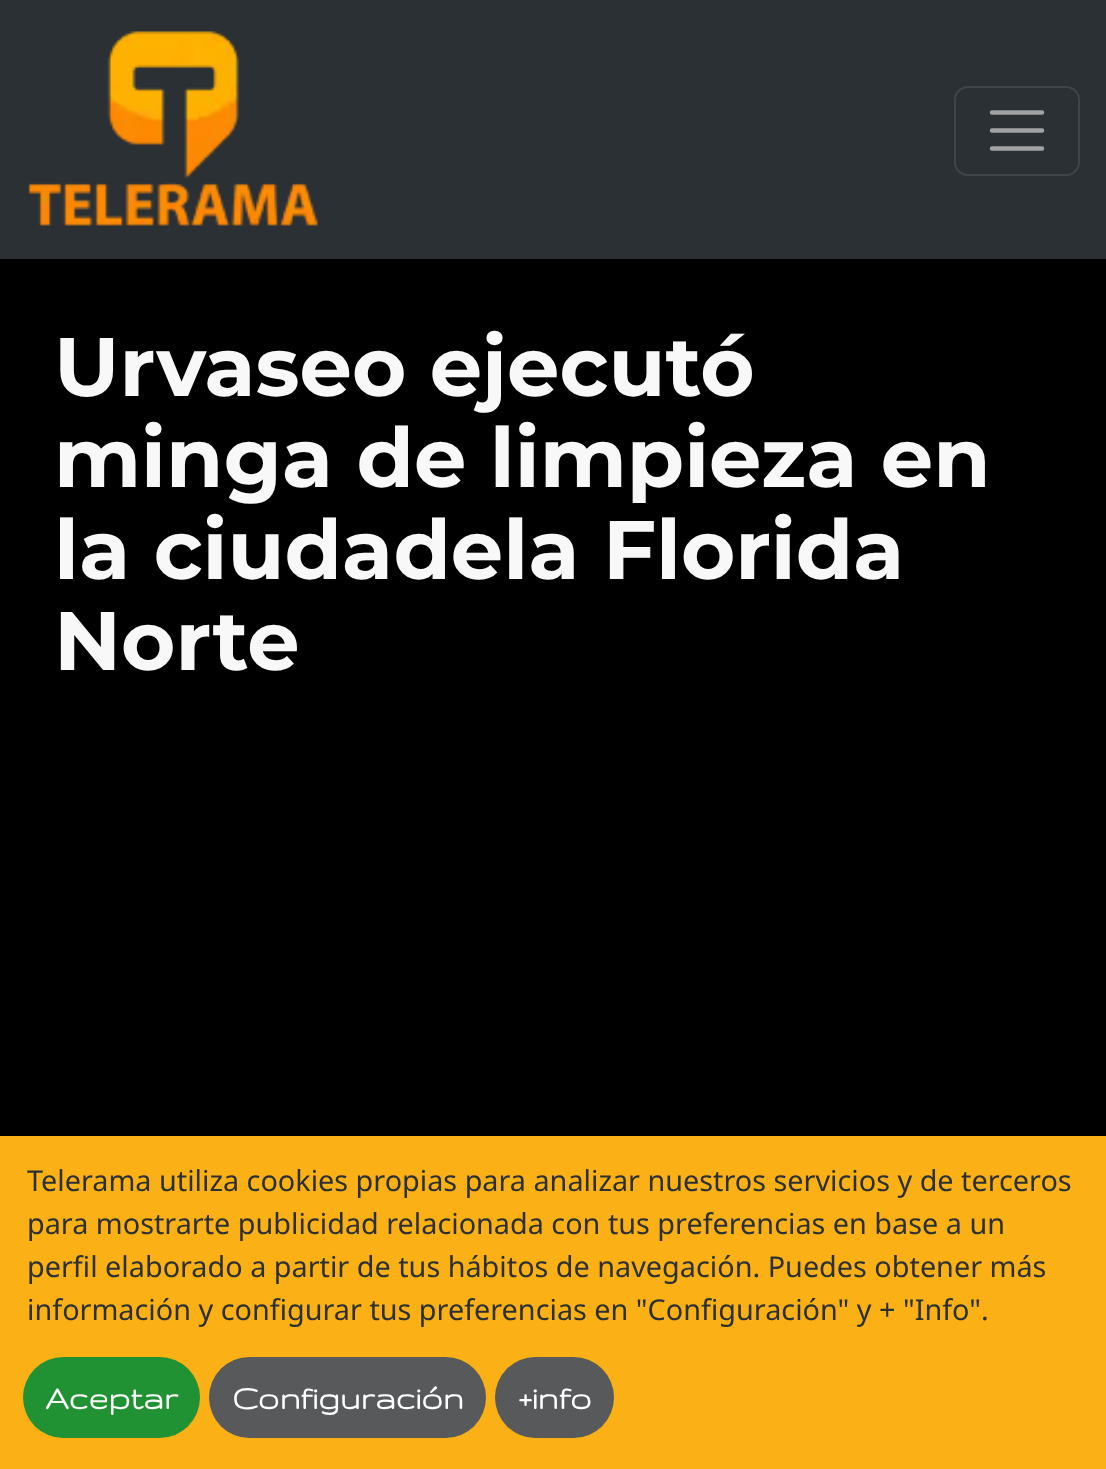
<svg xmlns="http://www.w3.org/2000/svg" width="1106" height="1469">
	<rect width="100%" height="100%" fill="#000000" />
	<rect x="0" y="0" width="1106" height="259" fill="#2B3035" />
	<image x="28" y="31" width="290" height="195" href="assets/img1.png" />
	<rect x="955" y="87" width="124" height="88" rx="13" fill="none" stroke="#404549" stroke-width="2" />
	<path d="M992 112.5H1042M992 130.5H1042M992 148.5H1042" fill="none" stroke="#A0A2A4" stroke-width="4.5" stroke-linecap="round" />
	<g font-family="Montserrat" font-size="83" font-weight="700" fill="#F8F8F8">
		<text x="54" y="396">Urvaseo ejecutó</text>
		<text x="54" y="487">minga de limpieza en</text>
		<text x="54" y="579">la ciudadela Florida</text>
		<text x="54" y="670">Norte</text>
	</g>
	<rect x="0" y="1136" width="1106" height="333" fill="#FBB116" />
	<g font-family="Noto Sans" font-size="28.8" fill="#2B3035">
		<text x="27" y="1191">Telerama utiliza cookies propias para analizar nuestros servicios y de terceros</text>
		<text x="27" y="1234">para mostrarte publicidad relacionada con tus preferencias en base a un</text>
		<text x="27" y="1277">perfil elaborado a partir de tus hábitos de navegación. Puedes obtener más</text>
		<text x="27" y="1320">información y configurar tus preferencias en "Configuración" y + "Info".</text>
	</g>
	<rect x="23" y="1357" width="177" height="81" rx="40.5" fill="#219234" />
	<text x="45" y="1409" font-family="Gruppo" font-size="36" font-weight="700" fill="#F8F8F8">Aceptar</text>
	<rect x="209" y="1357" width="277" height="81" rx="40.5" fill="#58595B" />
	<text x="232" y="1409" font-family="Gruppo" font-size="36" font-weight="700" fill="#FFFFFF">Configuración</text>
	<rect x="495" y="1357" width="119" height="81" rx="40.5" fill="#58595B" />
	<text x="518" y="1409" font-family="Gruppo" font-size="36" font-weight="700" fill="#FFFFFF">+info</text>
</svg>
